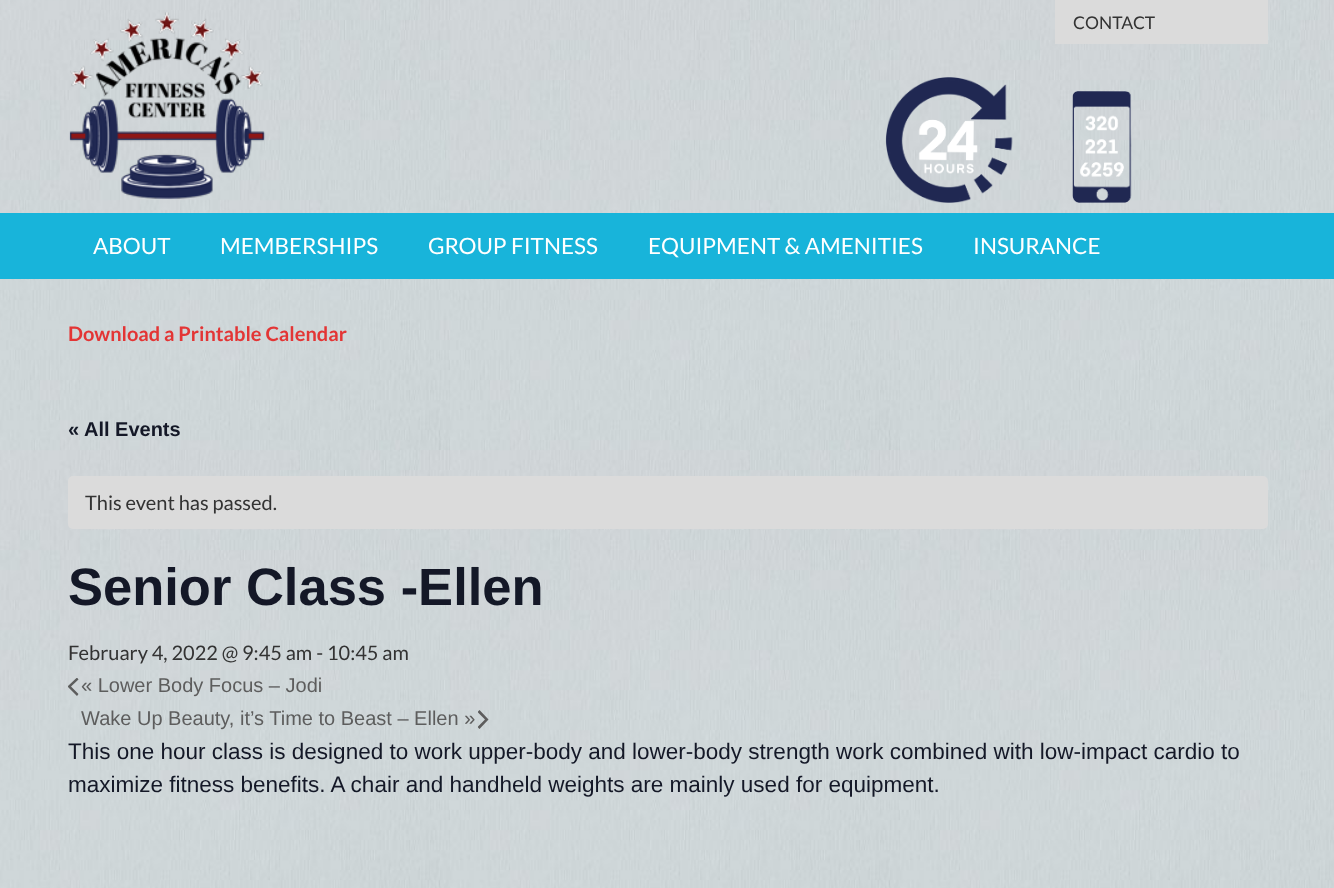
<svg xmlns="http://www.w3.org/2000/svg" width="1334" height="888">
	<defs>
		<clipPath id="clip1"><rect x="68" y="678" width="11" height="18" /></clipPath>
		<clipPath id="clip2"><rect x="478" y="710" width="11" height="19" /></clipPath>
	</defs>
	<rect width="100%" height="100%" fill="#FFFFFF" />
	<image x="0" y="0" width="1334" height="888" href="assets/img1.png" />
	<image x="69" y="12" width="197" height="187" href="assets/img2.png" />
	<rect x="1055" y="0" width="213" height="44" fill="#DBDBDB" />
	<text x="1073" y="29" font-family="Lato" font-size="17.5" fill="#333333">CONTACT</text>
	<image x="885" y="77" width="128" height="126" href="assets/img3.png" />
	<image x="1072" y="91" width="60" height="112" href="assets/img4.png" />
	<rect x="0" y="213" width="1334" height="66" fill="#18B4DA" />
	<g font-family="Lato" font-size="22.5" fill="#FFFFFF">
		<text x="93" y="254">ABOUT</text>
		<text x="220" y="254">MEMBERSHIPS</text>
		<text x="428" y="254">GROUP FITNESS</text>
		<text x="648" y="254">EQUIPMENT &amp; AMENITIES</text>
		<text x="973" y="254">INSURANCE</text>
	</g>
	<text x="68" y="341" font-family="Lato" font-size="20" font-weight="700" fill="#E33535">Download a Printable Calendar</text>
	<text x="68" y="436" font-family="Liberation Sans" font-size="20" font-weight="700" fill="#141827">« All Events</text>
	<rect x="68" y="476" width="1200" height="53" rx="5" fill="#DBDBDB" />
	<text x="85" y="510" font-family="Lato" font-size="20" fill="#333333">This event has passed.</text>
	<text x="68" y="605" font-family="Liberation Sans" font-size="52.5" font-weight="700" fill="#141827">Senior Class -Ellen</text>
	<text x="68" y="660" font-family="Lato" font-size="20" fill="#333333">February 4, 2022 @ 9:45 am - 10:45 am</text>
	<g clip-path="url(#clip1)">
		<path d="M78.5 694L77 696L67.5 686.5L77 677.5L78.5 679.5L71 686.5Z" fill="#5D5D5D" />
	</g>
	<g font-family="Liberation Sans" font-size="20" fill="#5D5D5D">
		<text x="81" y="692">« Lower Body Focus – Jodi</text>
		<text x="81" y="725">Wake Up Beauty, it’s Time to Beast – Ellen »</text>
	</g>
	<g clip-path="url(#clip2)">
		<path d="M477.5 712L479.5 710L488.5 719.5L479.5 729L477.5 727L485 719.5Z" fill="#5D5D5D" />
	</g>
	<g font-family="Liberation Sans" font-size="22.5" fill="#141827">
		<text x="68" y="759">This one hour class is designed to work upper-body and lower-body strength work combined with low-impact cardio to</text>
		<text x="68" y="792">maximize fitness benefits. A chair and handheld weights are mainly used for equipment.</text>
	</g>
</svg>
